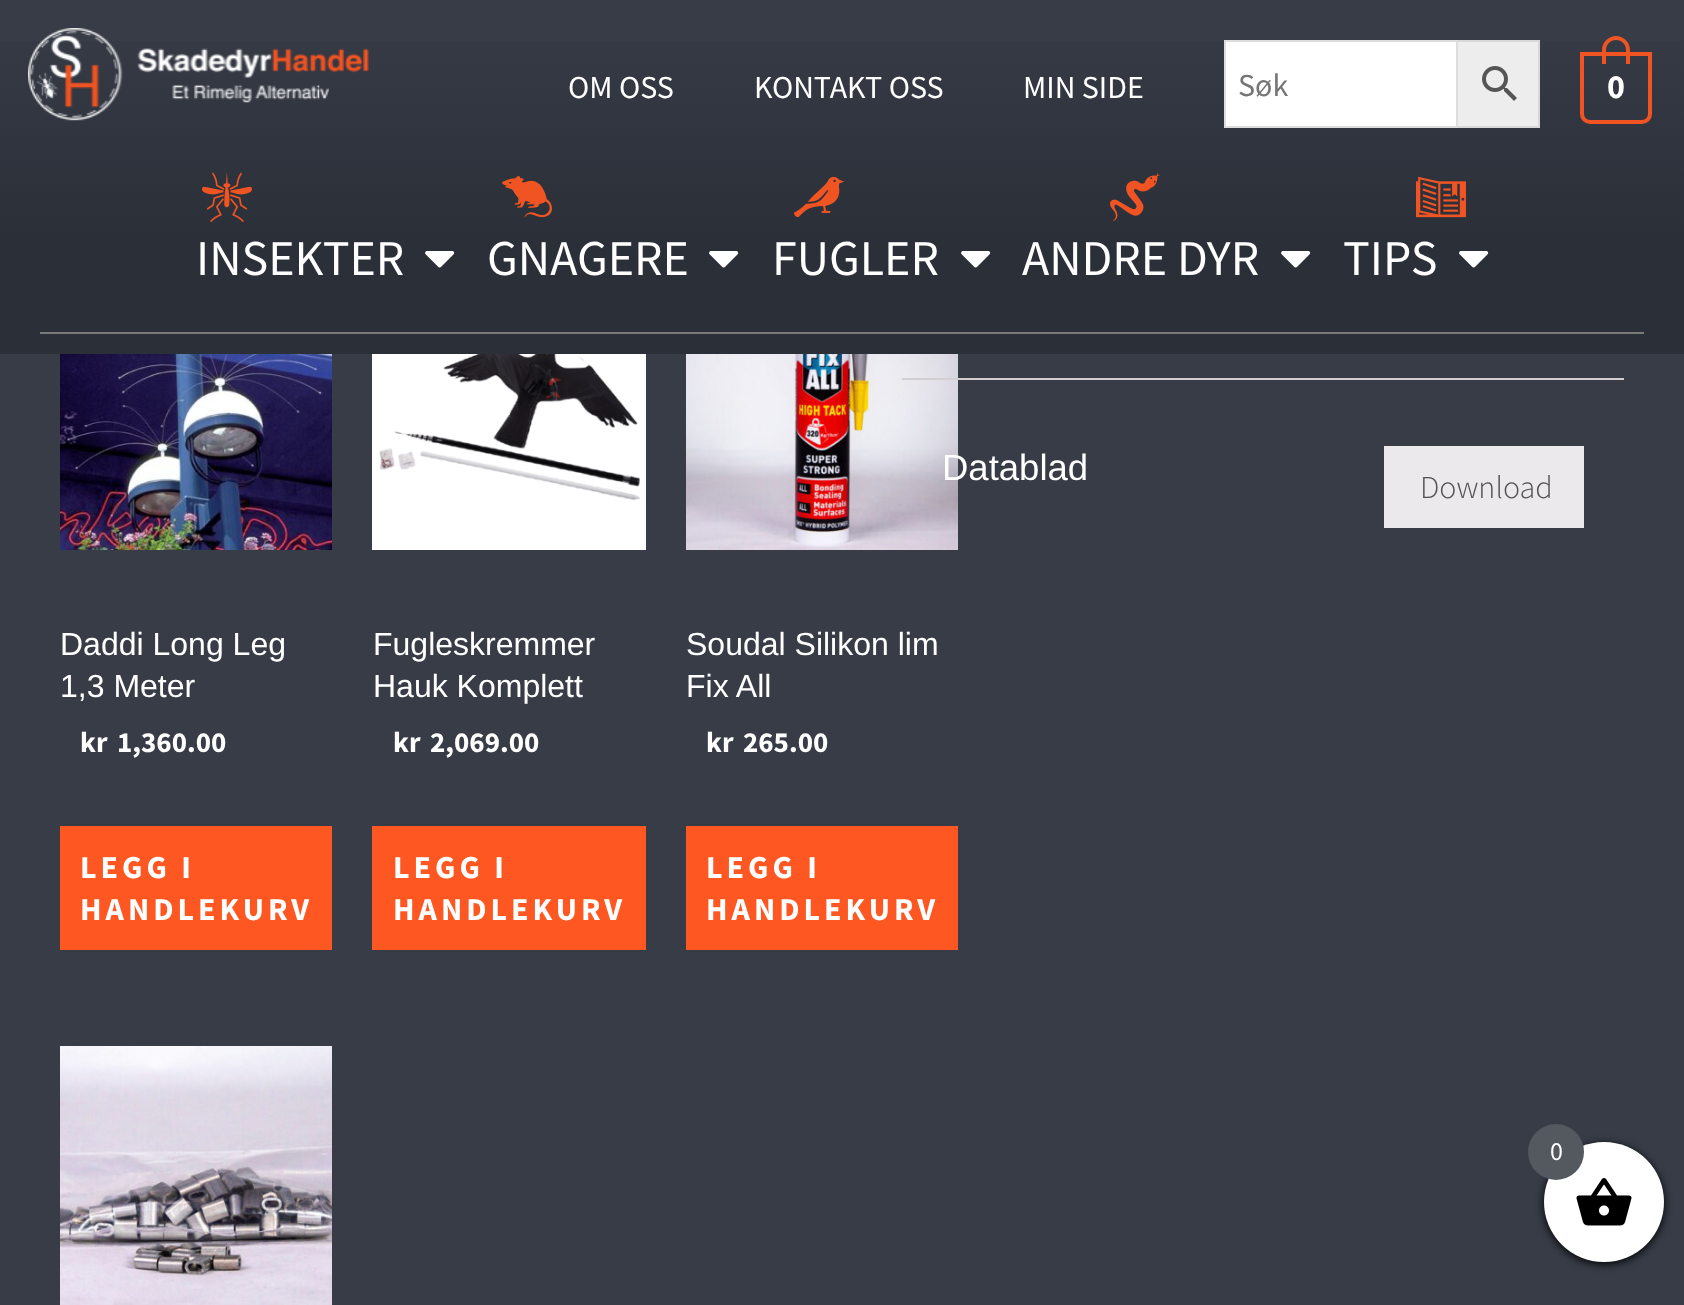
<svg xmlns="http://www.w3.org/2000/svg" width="1684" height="1305">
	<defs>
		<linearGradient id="g1" gradientUnits="userSpaceOnUse" x1="842" y1="0" x2="842" y2="354"><stop offset="0" stop-color="#373C47" /><stop offset="0.69" stop-color="#2B2F38" /></linearGradient>
	</defs>
	<rect width="100%" height="100%" fill="#373C47" />
	<rect x="0" y="41" width="1684" height="313" fill="url(#g1)" />
	<image x="28" y="28" width="341" height="93" href="assets/img1.png" />
	<g font-family="Source Sans Pro" font-size="32" fill="#FFFFFF">
		<text x="568" y="98">OM OSS</text>
		<text x="754" y="98">KONTAKT OSS</text>
		<text x="1023" y="98">MIN SIDE</text>
	</g>
	<rect x="1457" y="41" width="82" height="86" fill="#EDEDED" stroke="#D8D8D8" stroke-width="2" />
	<rect x="1225" y="41" width="232" height="86" fill="#FFFFFF" stroke="#DDDDDD" stroke-width="2" />
	<text x="1238" y="96" font-family="Source Sans Pro" font-size="32" fill="#757575">Søk</text>
	<image x="1482" y="66" width="35" height="35" href="assets/img2.png" />
	<path d="M1582 54H1650V114C1650 118.5 1646.5 122 1642 122H1590C1585.5 122 1582 118.5 1582 114Z" fill="none" stroke="#F05423" stroke-width="4" />
	<path d="M1616 36C1624 36 1630 42.5 1630 50V64H1602V50C1602 42.5 1608.5 36 1616 36ZM1616 40C1622 40 1626 44.5 1626 50V64H1606V50C1606 44.5 1610.5 40 1616 40Z" fill="#F05423" fill-rule="evenodd" />
	<text x="1607" y="98" font-family="Source Sans Pro" font-size="34" font-weight="700" fill="#FFFFFF">0</text>
	<image x="202" y="172" width="50" height="50" href="assets/img3.png" />
	<image x="502" y="176" width="50" height="42" href="assets/img4.png" />
	<image x="794" y="176" width="50" height="41" href="assets/img5.png" />
	<image x="1110" y="173" width="50" height="49" href="assets/img6.png" />
	<image x="1416" y="176" width="50" height="42" href="assets/img7.png" />
	<text x="196" y="275" font-family="Source Sans Pro" font-size="50" fill="#FFFFFF">INSEKTER</text>
	<image x="425" y="251" width="30" height="17" href="assets/img8.png" />
	<text x="487" y="275" font-family="Source Sans Pro" font-size="50" fill="#FFFFFF">GNAGERE</text>
	<image x="709" y="251" width="30" height="17" href="assets/img8.png" />
	<text x="772" y="275" font-family="Source Sans Pro" font-size="50" fill="#FFFFFF">FUGLER</text>
	<image x="961" y="251" width="30" height="17" href="assets/img8.png" />
	<text x="1022" y="275" font-family="Source Sans Pro" font-size="50" fill="#FFFFFF">ANDRE DYR</text>
	<image x="1281" y="251" width="30" height="17" href="assets/img8.png" />
	<text x="1343" y="275" font-family="Source Sans Pro" font-size="50" fill="#FFFFFF">TIPS</text>
	<image x="1459" y="251" width="30" height="17" href="assets/img8.png" />
	<rect x="40" y="332" width="1604" height="2" fill="#7A7A7A" />
	<image x="686" y="354" width="272" height="196" href="assets/img11.png" />
	<rect x="902" y="378" width="722" height="2" fill="#D3CED2" />
	<text x="942" y="480" font-family="Liberation Sans" font-size="36.5" fill="#FFFFFF">Datablad</text>
	<rect x="1384" y="446" width="200" height="82" fill="#EBE9EB" />
	<text x="1420" y="498" font-family="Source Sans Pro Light" font-size="32" font-weight="300" fill="#515151">Download</text>
	<image x="60" y="354" width="272" height="196" href="assets/img9.png" />
	<g font-family="Liberation Sans" font-size="32" fill="#FFFFFF">
		<text x="60" y="655">Daddi Long Leg</text>
		<text x="60" y="697">1,3 Meter</text>
	</g>
	<g font-family="Source Sans Pro" font-size="29" font-weight="700" fill="#FFFFFF">
		<text x="80" y="752">kr</text>
		<text x="117" y="752">1,360.00</text>
	</g>
	<rect x="60" y="826" width="272" height="124" fill="#FE5722" />
	<g font-family="Source Sans Pro" font-size="32" font-weight="700" letter-spacing="4" fill="#FFFFFF">
		<text x="80" y="878">LEGG I</text>
		<text x="80" y="920">HANDLEKURV</text>
	</g>
	<image x="372" y="354" width="274" height="196" href="assets/img10.png" />
	<g font-family="Liberation Sans" font-size="32" fill="#FFFFFF">
		<text x="373" y="655">Fugleskremmer</text>
		<text x="373" y="697">Hauk Komplett</text>
	</g>
	<g font-family="Source Sans Pro" font-size="29" font-weight="700" fill="#FFFFFF">
		<text x="393" y="752">kr</text>
		<text x="430" y="752">2,069.00</text>
	</g>
	<rect x="372" y="826" width="274" height="124" fill="#FE5722" />
	<g font-family="Source Sans Pro" font-size="32" font-weight="700" letter-spacing="4" fill="#FFFFFF">
		<text x="393" y="878">LEGG I</text>
		<text x="393" y="920">HANDLEKURV</text>
	</g>
	<g font-family="Liberation Sans" font-size="32" fill="#FFFFFF">
		<text x="686" y="655">Soudal Silikon lim</text>
		<text x="686" y="697">Fix All</text>
	</g>
	<g font-family="Source Sans Pro" font-size="29" font-weight="700" fill="#FFFFFF">
		<text x="706" y="752">kr</text>
		<text x="743" y="752">265.00</text>
	</g>
	<rect x="686" y="826" width="272" height="124" fill="#FE5722" />
	<g font-family="Source Sans Pro" font-size="32" font-weight="700" letter-spacing="4" fill="#FFFFFF">
		<text x="706" y="878">LEGG I</text>
		<text x="706" y="920">HANDLEKURV</text>
	</g>
	<image x="60" y="1046" width="272" height="259" href="assets/img12.png" />
	<rect x="1544" y="1144" width="120" height="120" rx="60" fill="#000000" filter="blur(4px)" />
	<circle cx="1604" cy="1202" r="60" fill="#FFFFFF" />
	<image x="1576" y="1178" width="56" height="48" href="assets/img13.png" />
	<circle cx="1556" cy="1152" r="28" fill="#54595F" />
	<text x="1550" y="1160" font-family="Source Sans Pro" font-size="26" fill="#FFFFFF">0</text>
</svg>
